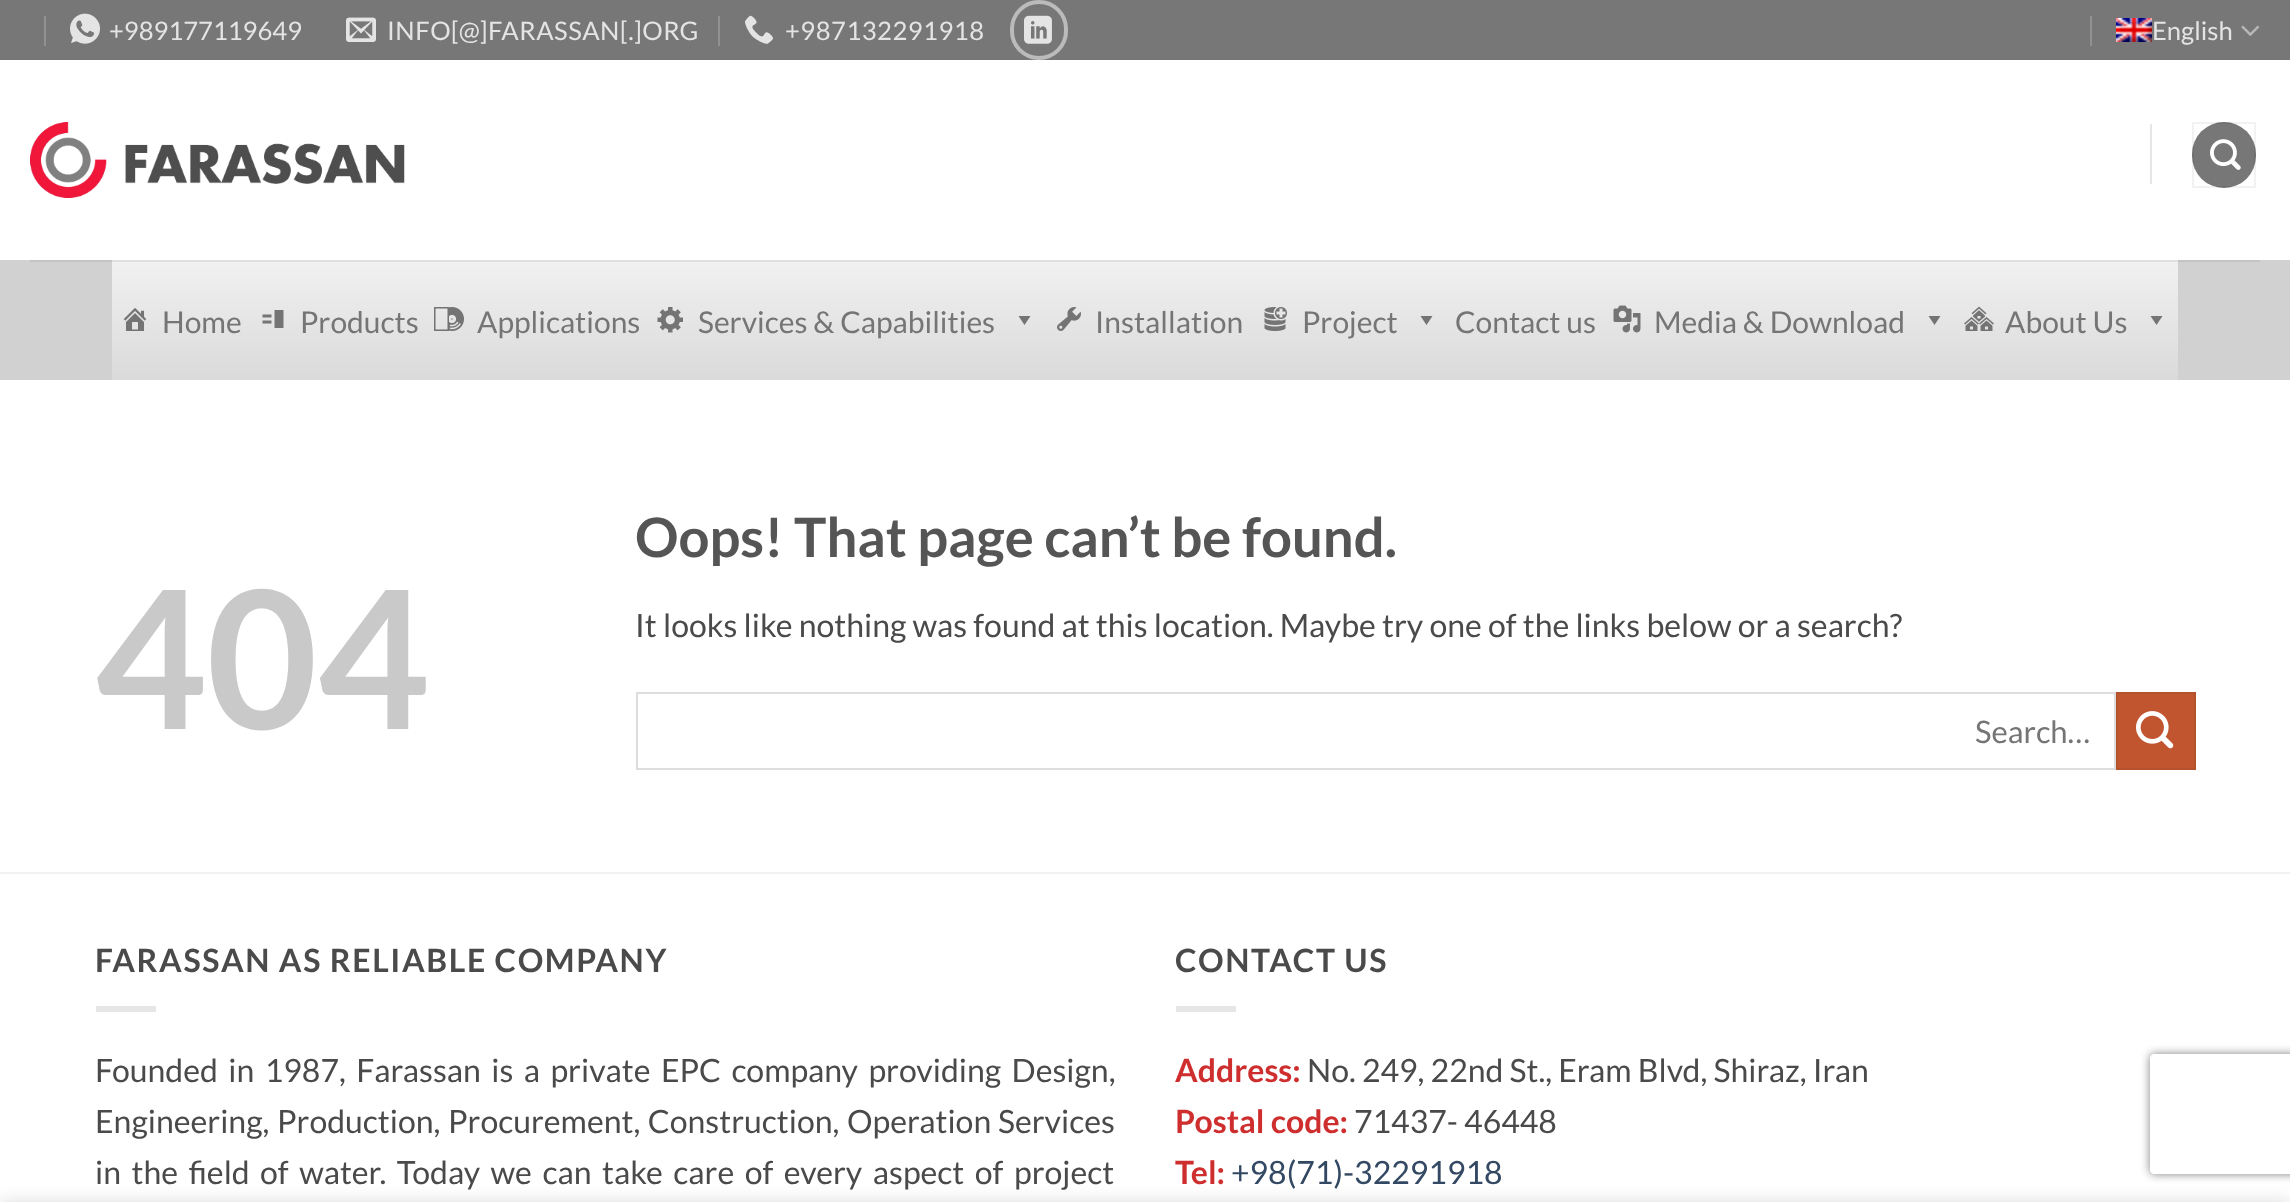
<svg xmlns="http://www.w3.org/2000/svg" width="2290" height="1202">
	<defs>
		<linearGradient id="g1" gradientUnits="userSpaceOnUse" x1="1145" y1="260" x2="1145" y2="380"><stop offset="0" stop-color="#F1F1F1" /><stop offset="1" stop-color="#DADADA" /></linearGradient>
		<linearGradient id="g2" gradientUnits="userSpaceOnUse" x1="1145" y1="260" x2="1145" y2="380"><stop offset="0" stop-color="#E0E0E0" /><stop offset="1" stop-color="#CCCCCC" /></linearGradient>
		<clipPath id="clip1"><path d="M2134 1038H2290V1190H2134ZM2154 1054H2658C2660 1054 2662 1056 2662 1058V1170C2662 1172 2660 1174 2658 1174H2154C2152 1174 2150 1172 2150 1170V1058C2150 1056 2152 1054 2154 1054Z" clip-rule="evenodd" /></clipPath>
	</defs>
	<rect width="100%" height="100%" fill="#FFFFFF" />
	<rect x="0" y="0" width="2290" height="60" fill="#777777" />
	<rect x="44" y="16" width="2" height="30" fill="#929292" />
	<image x="70" y="13" width="30" height="31" href="assets/img1.png" />
	<text x="109" y="40" font-family="Lato" font-size="25.6" fill="#E4E4E4">+989177119649</text>
	<image x="346" y="17" width="30" height="25" href="assets/img2.png" />
	<text x="387" y="40" font-family="Lato" font-size="25.6" letter-spacing="0.5" fill="#E4E4E4">INFO[@]FARASSAN[.]ORG</text>
	<rect x="718" y="16" width="2" height="30" fill="#929292" />
	<image x="745" y="15" width="28" height="29" href="assets/img3.png" />
	<text x="785" y="40" font-family="Lato" font-size="25.6" letter-spacing="0.5" fill="#E4E4E4">+987132291918</text>
	<rect x="1012" y="2" width="54" height="56" rx="27" fill="none" stroke="#BBBBBB" stroke-width="4" />
	<image x="1024" y="15" width="28" height="29" href="assets/img4.png" />
	<rect x="2090" y="16" width="2" height="30" fill="#929292" />
	<image x="2116" y="18" width="36" height="24" href="assets/img5.png" />
	<text x="2152" y="40" font-family="Lato" font-size="25.6" fill="#E4E4E4">English</text>
	<image x="2241" y="25" width="19" height="11" href="assets/img6.png" />
	<image x="30" y="122" width="375" height="76" href="assets/img7.png" />
	<rect x="2150" y="124" width="2" height="60" fill="#E6E6E6" />
	<rect x="2192" y="122" width="64" height="66" rx="32" fill="#777777" />
	<rect x="2193" y="123" width="62" height="64" fill="none" stroke="#000000" stroke-opacity="0.05" stroke-width="2" />
	<image x="2210" y="139" width="31" height="31" href="assets/img8.png" />
	<rect x="0" y="260" width="2290" height="120" fill="#D1D1D1" />
	<rect x="30" y="260" width="2230" height="2" fill="#C4C4C4" />
	<rect x="112" y="262" width="2066" height="118" fill="url(#g1)" />
	<rect x="112" y="260" width="2066" height="2" fill="url(#g2)" />
	<image x="123" y="308" width="24" height="23" href="assets/img9.png" />
	<text x="162" y="333" font-family="Lato" font-size="30" fill="#757575">Home</text>
	<image x="262" y="310" width="22" height="18" href="assets/img10.png" />
	<text x="300" y="333" font-family="Lato" font-size="30" fill="#757575">Products</text>
	<image x="434" y="307" width="30" height="24" href="assets/img11.png" />
	<text x="477" y="333" font-family="Lato" font-size="30" fill="#757575">Applications</text>
	<image x="657" y="307" width="26" height="26" href="assets/img12.png" />
	<text x="698" y="333" font-family="Lato" font-size="30" fill="#757575">Services &amp; Capabilities</text>
	<path d="M1030.5 316L1024.5 325L1018.5 316Z" fill="#747474" />
	<image x="1057" y="307" width="24" height="24" href="assets/img13.png" />
	<text x="1095" y="333" font-family="Lato" font-size="30" fill="#757575">Installation</text>
	<image x="1264" y="307" width="23" height="24" href="assets/img14.png" />
	<text x="1302" y="333" font-family="Lato" font-size="30" fill="#757575">Project</text>
	<path d="M1432.5 316L1426.5 325L1420.5 316Z" fill="#747474" />
	<text x="1455" y="333" font-family="Lato" font-size="30" fill="#757575">Contact us</text>
	<image x="1613" y="305" width="28" height="28" href="assets/img15.png" />
	<text x="1654" y="333" font-family="Lato" font-size="30" fill="#757575">Media &amp; Download</text>
	<path d="M1940.5 316L1934.5 325L1928.5 316Z" fill="#747474" />
	<image x="1964" y="306" width="30" height="25" href="assets/img16.png" />
	<text x="2005" y="333" font-family="Lato" font-size="30" fill="#757575">About Us</text>
	<path d="M2162.5 316L2156.5 325L2150.5 316Z" fill="#747474" />
	<text x="95" y="729" font-family="Lato" font-size="192" font-weight="700" fill="#C9C9C9">404</text>
	<text x="635" y="557" font-family="Lato" font-size="54.4" font-weight="700" fill="#555555">Oops! That page can’t be found.</text>
	<text x="635" y="637" font-family="Lato" font-size="32" fill="#4A4A4A">It looks like nothing was found at this location. Maybe try one of the links below or a search?</text>
	<rect x="637" y="693" width="1478" height="76" fill="none" stroke="#DDDDDD" stroke-width="2" />
	<text x="1975" y="743" font-family="Lato" font-size="31" fill="#757575">Search…</text>
	<rect x="2117" y="693" width="78" height="76" fill="#C05530" stroke="#B6512E" stroke-width="2" />
	<image x="2136" y="711" width="38" height="38" href="assets/img17.png" />
	<rect x="0" y="872" width="2290" height="2" fill="#F2F2F2" />
	<text x="95" y="972" font-family="Lato" font-size="32" font-weight="700" letter-spacing="1.6" fill="#4A4A4A">FARASSAN AS RELIABLE COMPANY</text>
	<rect x="96" y="1006" width="60" height="6" fill="#E6E6E6" />
	<g font-family="Lato" font-size="32" fill="#4A4A4A">
		<text x="95" y="1082" word-spacing="4.25">Founded in 1987, Farassan is a private EPC company providing Design,</text>
		<text x="95" y="1133" word-spacing="1.5">Engineering, Production, Procurement, Construction, Operation</text>
		<text x="998" y="1133">Services</text>
		<text x="95" y="1184" word-spacing="4.4">in the field</text>
		<text x="260" y="1184" word-spacing="4.4">of water. Today we can take care of every aspect of project</text>
	</g>
	<text x="1175" y="972" font-family="Lato" font-size="32" font-weight="700" letter-spacing="1.6" fill="#4A4A4A">CONTACT US</text>
	<rect x="1176" y="1006" width="60" height="6" fill="#E6E6E6" />
	<text x="1175" y="1082" font-family="Lato" font-size="32" font-weight="700" fill="#CF2E2E">Address:</text>
	<text x="1307" y="1082" font-family="Lato" font-size="32" fill="#4A4A4A">No. 249, 22nd St., Eram Blvd, Shiraz, Iran</text>
	<text x="1175" y="1133" font-family="Lato" font-size="32" font-weight="700" fill="#CF2E2E">Postal code:</text>
	<text x="1354" y="1133" font-family="Lato" font-size="32" fill="#4A4A4A">71437- 46448</text>
	<text x="1175" y="1184" font-family="Lato" font-size="32" font-weight="700" fill="#CF2E2E">Tel:</text>
	<text x="1231" y="1184" font-family="Lato" font-size="32" fill="#334862">+98(71)-32291918</text>
	<g clip-path="url(#clip1)">
		<rect x="2150" y="1054" width="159" height="120" rx="4" fill="#808080" filter="blur(5px)" />
	</g>
	<rect x="0" y="1202" width="2290" height="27" fill="#000000" fill-opacity="0.14" filter="blur(9px)" />
</svg>
